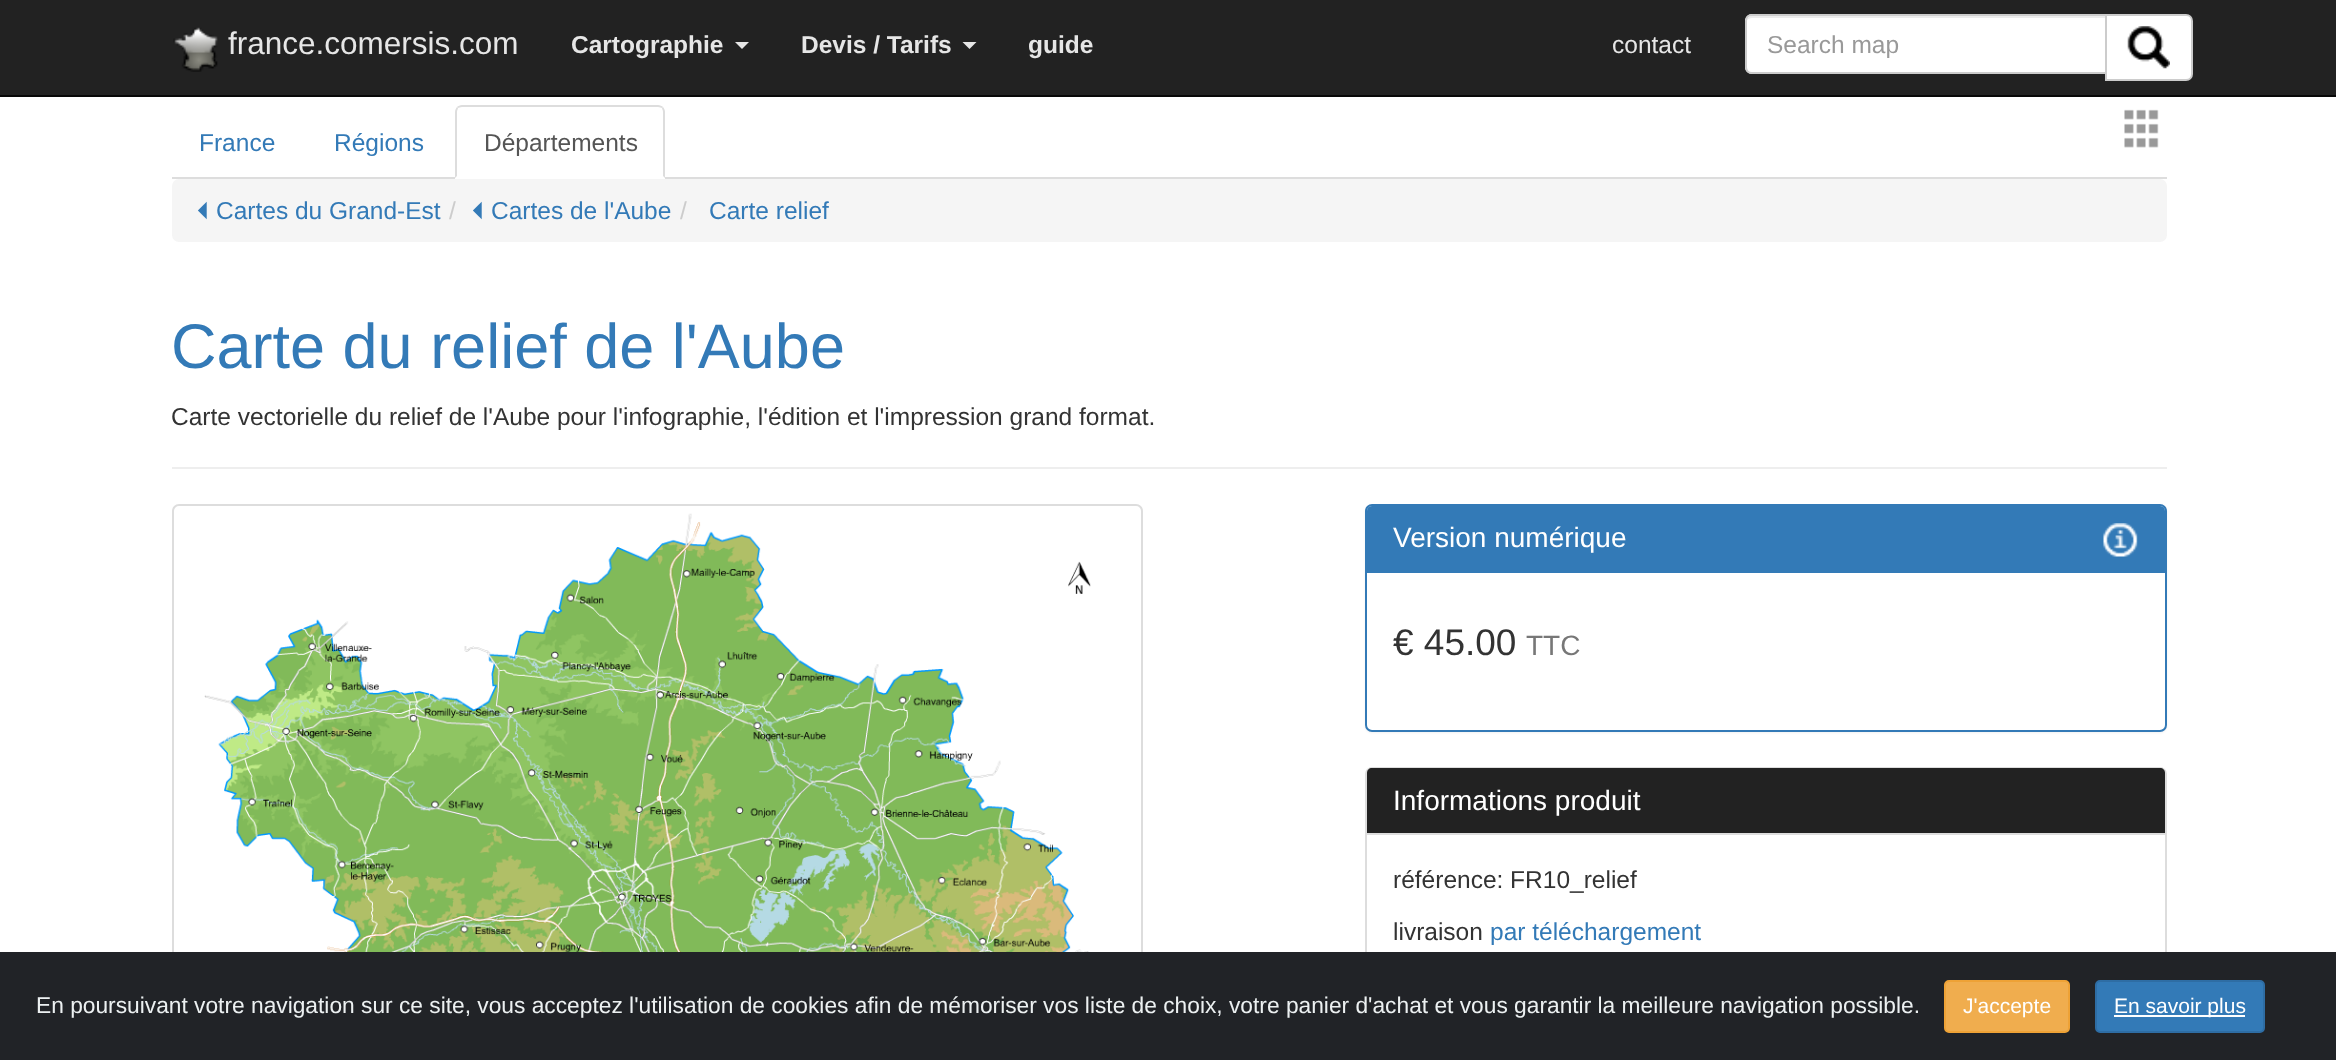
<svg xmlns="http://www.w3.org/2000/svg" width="2336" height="1060">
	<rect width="100%" height="100%" fill="#FFFFFF" />
	<rect x="0" y="0" width="2336" height="95" fill="#222222" />
	<rect x="0" y="95" width="2336" height="2" fill="#080808" />
	<image x="173" y="27" width="45" height="45" href="assets/img1.png" />
	<text x="228" y="54" font-family="Liberation Sans" font-size="31.5" fill="#E6E6E6">france.comersis.com</text>
	<text x="571" y="53" font-family="Liberation Sans" font-size="24.5" font-weight="700" fill="#E6E6E6">Cartographie</text>
	<path d="M735 42H749L742 49Z" fill="#E6E6E6" />
	<text x="801" y="53" font-family="Liberation Sans" font-size="24.5" font-weight="700" fill="#E6E6E6">Devis / Tarifs</text>
	<path d="M962.5 42H976.5L969.5 49Z" fill="#E6E6E6" />
	<text x="1028" y="53" font-family="Liberation Sans" font-size="24.5" font-weight="700" fill="#E6E6E6">guide</text>
	<text x="1612" y="53" font-family="Liberation Sans" font-size="24.5" fill="#E6E6E6">contact</text>
	<path d="M1752 14H2107V74H1752C1748 74 1745 71 1745 67V21C1745 17 1748 14 1752 14Z" fill="#FFFFFF" />
	<path d="M1752 18H2105V16H1752C1750 16 1747 18 1747 20C1748 19 1750 18 1752 18Z" fill="#ECECEC" />
	<path d="M1752 15H2106V73H1752C1748.5 73 1746 70.5 1746 67V21C1746 17.5 1748.5 15 1752 15Z" fill="none" stroke="#CCCCCC" stroke-width="2" />
	<text x="1767" y="53" font-family="Liberation Sans" font-size="24.5" fill="#999999">Search map</text>
	<path d="M2106 15H2186C2189.5 15 2192 17.5 2192 21V74C2192 77.5 2189.5 80 2186 80H2106Z" fill="#FFFFFF" stroke="#CCCCCC" stroke-width="2" />
	<image x="2127" y="26" width="43" height="43" href="assets/img2.png" />
	<rect x="172" y="177" width="1995" height="2" fill="#DDDDDD" />
	<g font-family="Liberation Sans" font-size="24.5" fill="#337AB7">
		<text x="199" y="151">France</text>
		<text x="334" y="151">Régions</text>
	</g>
	<path d="M462 105H658C662 105 665 108 665 112V179H455V112C455 108 458 105 462 105Z" fill="#FFFFFF" />
	<path d="M462 105C460 105 458 106 457 107L458 108C459 108 460 107 462 107H658C660 107 661 108 662 108L663 107C662 106 660 105 658 105Z" fill="#DDDDDD" />
	<path d="M665 178V112C665 110 664 108 663 107L662 108C662 109 663 110 663 112V176Z" fill="#DDDDDD" />
	<path d="M455 112V178L457 176V112C457 110 458 109 458 108L457 107C456 108 455 110 455 112Z" fill="#DDDDDD" />
	<text x="484" y="151" font-family="Liberation Sans" font-size="24.5" fill="#555555">Départements</text>
	<image x="2124" y="109" width="35" height="39" href="assets/img3.png" />
	<rect x="172" y="179" width="1995" height="63" rx="7" fill="#F5F5F5" />
	<text x="197" y="219" font-family="FreeSans" font-size="24.5" fill="#337AB7">⏴</text>
	<text x="216" y="219" font-family="Liberation Sans" font-size="24.5" fill="#337AB7">Cartes du Grand-Est</text>
	<text x="449" y="219" font-family="Liberation Sans" font-size="24.5" fill="#CCCCCC">/</text>
	<text x="472" y="219" font-family="FreeSans" font-size="24.5" fill="#337AB7">⏴</text>
	<text x="491" y="219" font-family="Liberation Sans" font-size="24.5" fill="#337AB7">Cartes de l'Aube</text>
	<text x="680" y="219" font-family="Liberation Sans" font-size="24.5" fill="#CCCCCC">/</text>
	<text x="709" y="219" font-family="Liberation Sans" font-size="24.5" fill="#337AB7">Carte relief</text>
	<rect x="172" y="467" width="1995" height="2" fill="#EEEEEE" />
	<text x="171" y="368" font-family="Liberation Sans" font-size="63" fill="#337AB7">Carte du relief de l'Aube</text>
	<text x="171" y="425" font-family="Liberation Sans" font-size="24.5" fill="#333333">Carte vectorielle du relief de l'Aube pour l'infographie, l'édition et l'impression grand format.</text>
	<rect x="173" y="505" width="969" height="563" rx="6" fill="none" stroke="#DDDDDD" stroke-width="2" />
	<image x="204" y="513" width="887" height="439" href="assets/img4.png" />
	<rect x="1365" y="506" width="802" height="227" rx="7" fill="#000000" fill-opacity="0.05" filter="blur(1px)" />
	<rect x="1366" y="505" width="800" height="226" rx="6" fill="#FFFFFF" stroke="#337AB7" stroke-width="2" />
	<path d="M1372 506H2160C2163 506 2165 508 2165 511V572H1367V511C1367 508 1369 506 1372 506Z" fill="#337AB7" />
	<rect x="1367" y="572" width="798" height="1" fill="#337AB7" />
	<text x="1393" y="547" font-family="Liberation Sans" font-size="28" fill="#FFFFFF">Version numérique</text>
	<image x="2103" y="523" width="35" height="34" href="assets/img5.png" />
	<text x="1393" y="655" font-family="Liberation Sans" font-size="37" fill="#333333">€ 45.00</text>
	<text x="1526" y="655" font-family="Liberation Sans" font-size="28" fill="#777777">TTC</text>
	<rect x="1366" y="768" width="800" height="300" rx="6" fill="none" stroke="#DDDDDD" stroke-width="2" />
	<path d="M1372 768H2160C2163 768 2165 770 2165 773V835H1367V773C1367 770 1369 768 1372 768Z" fill="#222222" />
	<rect x="1367" y="833" width="798" height="2" fill="#DDDDDD" />
	<text x="1393" y="810" font-family="Liberation Sans" font-size="28" fill="#FFFFFF">Informations produit</text>
	<g font-family="Liberation Sans" font-size="24.5" fill="#333333">
		<text x="1393" y="888">référence: FR10_relief</text>
		<text x="1393" y="940">livraison</text>
	</g>
	<text x="1490" y="940" font-family="Liberation Sans" font-size="24.5" fill="#337AB7">par téléchargement</text>
	<rect x="0" y="952" width="2336" height="108" fill="#212327" />
	<text x="36" y="1013" font-family="Liberation Sans" font-size="22.75" fill="#ECF0F1">En poursuivant votre navigation sur ce site, vous acceptez l'utilisation de cookies afin de mémoriser vos liste de choix, votre panier d'achat et vous garantir la meilleure navigation possible.</text>
	<rect x="1945" y="981" width="124" height="51" rx="4" fill="#F0AD4E" stroke="#EEA236" stroke-width="2" />
	<text x="1963" y="1013" font-family="Liberation Sans" font-size="21" fill="#FFFFFF">J'accepte</text>
	<rect x="2096" y="981" width="168" height="51" rx="4" fill="#337AB7" stroke="#2E6DA4" stroke-width="2" />
	<rect x="2114" y="1015" width="131" height="2" fill="#FFFFFF" />
	<text x="2114" y="1013" font-family="Liberation Sans" font-size="21" fill="#FFFFFF">En savoir plus</text>
</svg>
